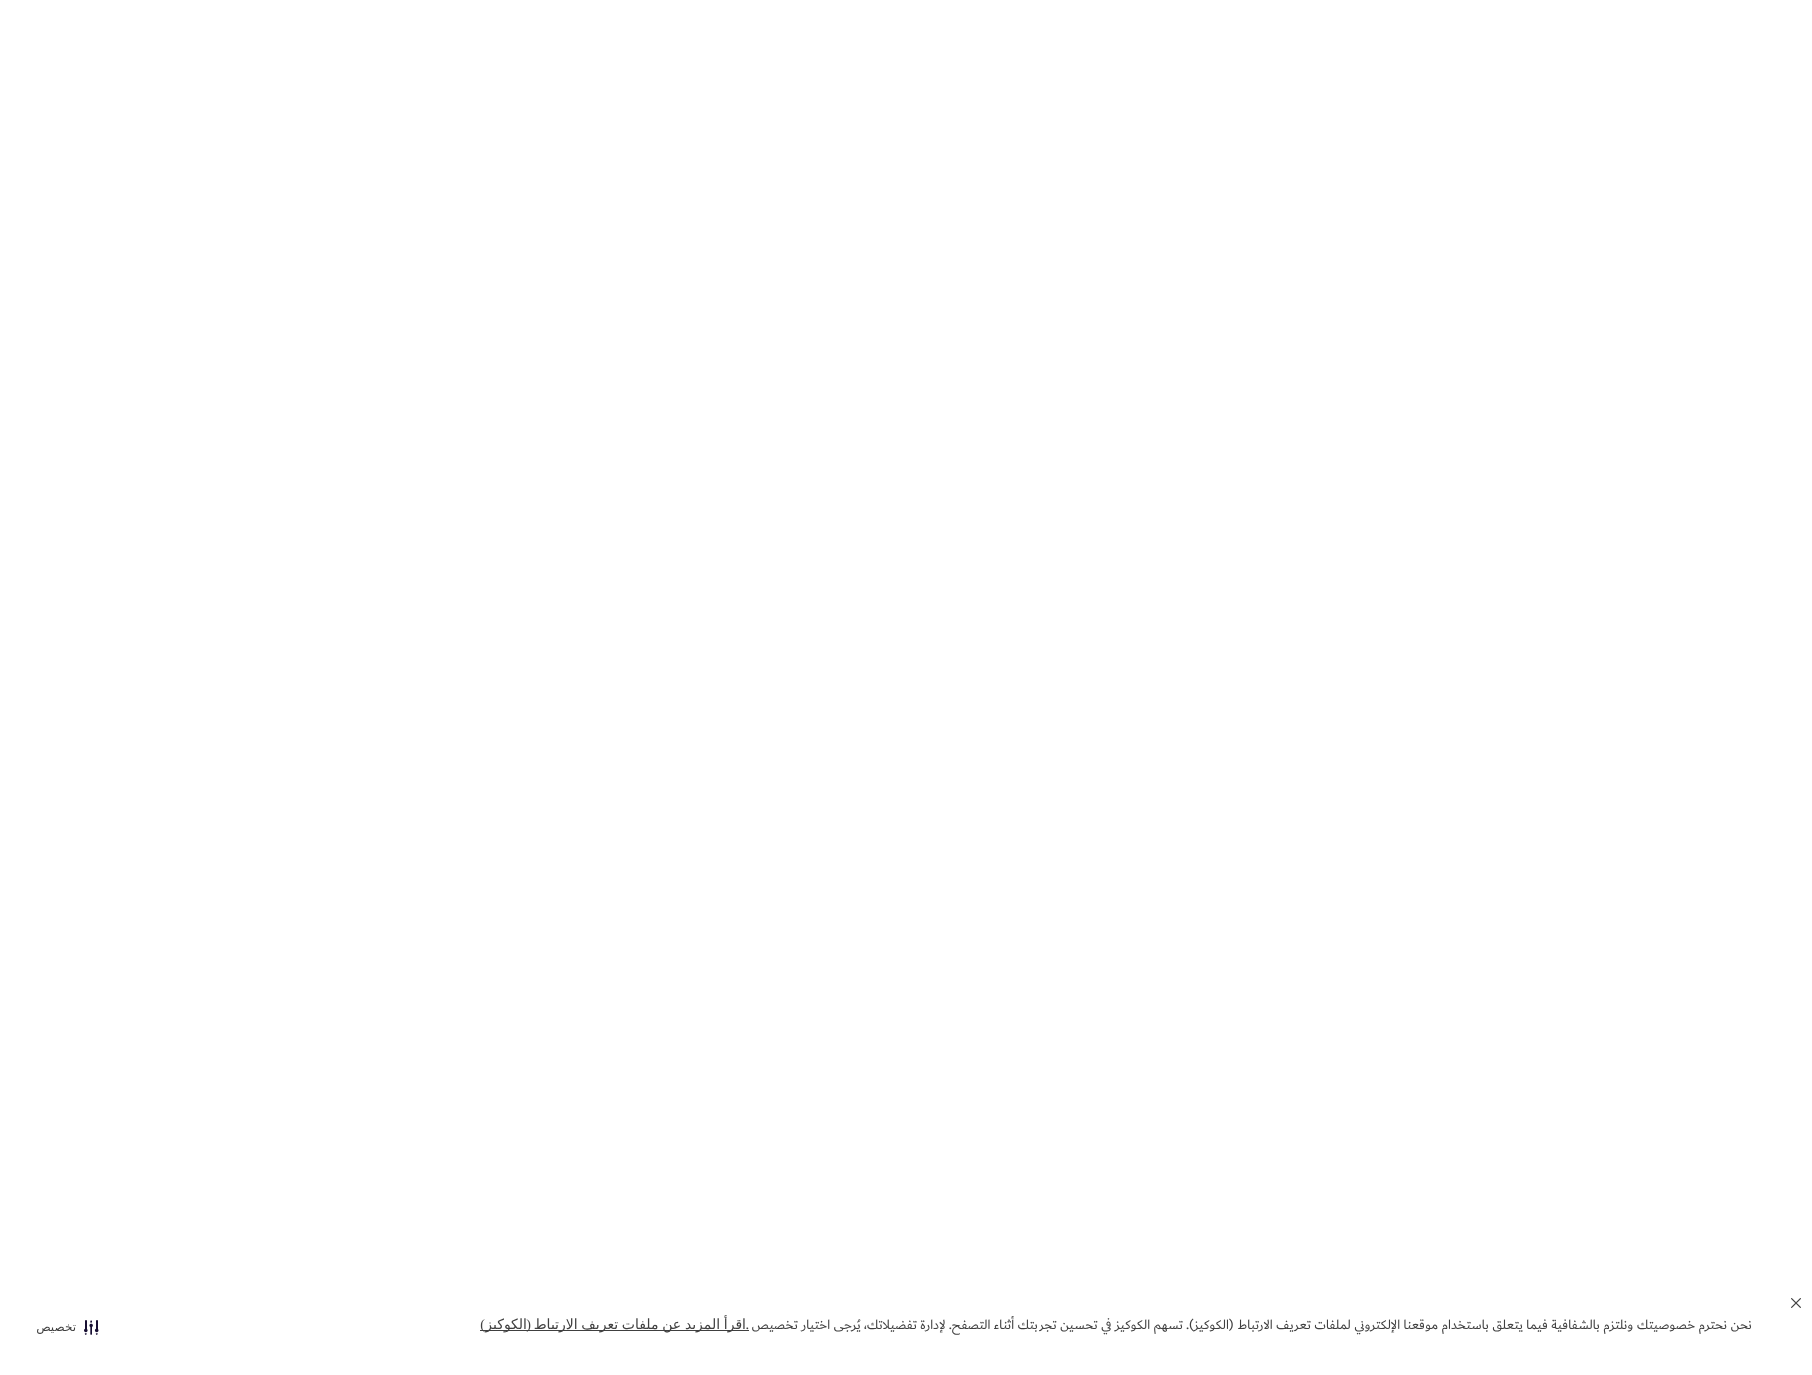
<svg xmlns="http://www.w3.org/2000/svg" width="1812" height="1375">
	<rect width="100%" height="100%" fill="#FFFFFF" />
	<text x="1752" y="1329" font-family="'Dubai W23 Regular'" font-size="14" direction="rtl" fill="#404040">نحن نحترم خصوصيتك ونلتزم بالشفافية فيما يتعلق باستخدام موقعنا الإلكتروني لملفات تعريف الارتباط (الكوكيز). تسهم الكوكيز في تحسين تجربتك أثناء التصفح. لإدارة تفضيلاتك، يُرجى اختيار تخصيص</text>
	<text x="746" y="1329" font-family="'Dubai W23 Regular'" font-size="14" fill="#404040">.</text>
	<rect x="480" y="1330" width="269" height="1" fill="#404040" />
	<text x="746" y="1329" word-spacing="-0.75" font-family="DejaVu Sans" font-size="14" direction="rtl" fill="#404040">اقرأ المزيد عن ملفات تعريف الارتباط</text>
	<g font-family="Liberation Serif" font-size="14" direction="rtl" fill="#404040">
		<text x="531" y="1329">(</text>
		<text x="485" y="1329">)</text>
	</g>
	<text x="527" y="1329" font-family="DejaVu Sans" font-size="14" direction="rtl" fill="#404040">الكوكيز</text>
	<image x="1791" y="1298" width="10" height="10" href="assets/img1.png" />
	<image x="84" y="1320" width="15" height="15" href="assets/img2.png" />
	<text x="76" y="1331" font-family="DejaVu Sans" font-size="12" direction="rtl" fill="#404040">تخصيص</text>
</svg>
